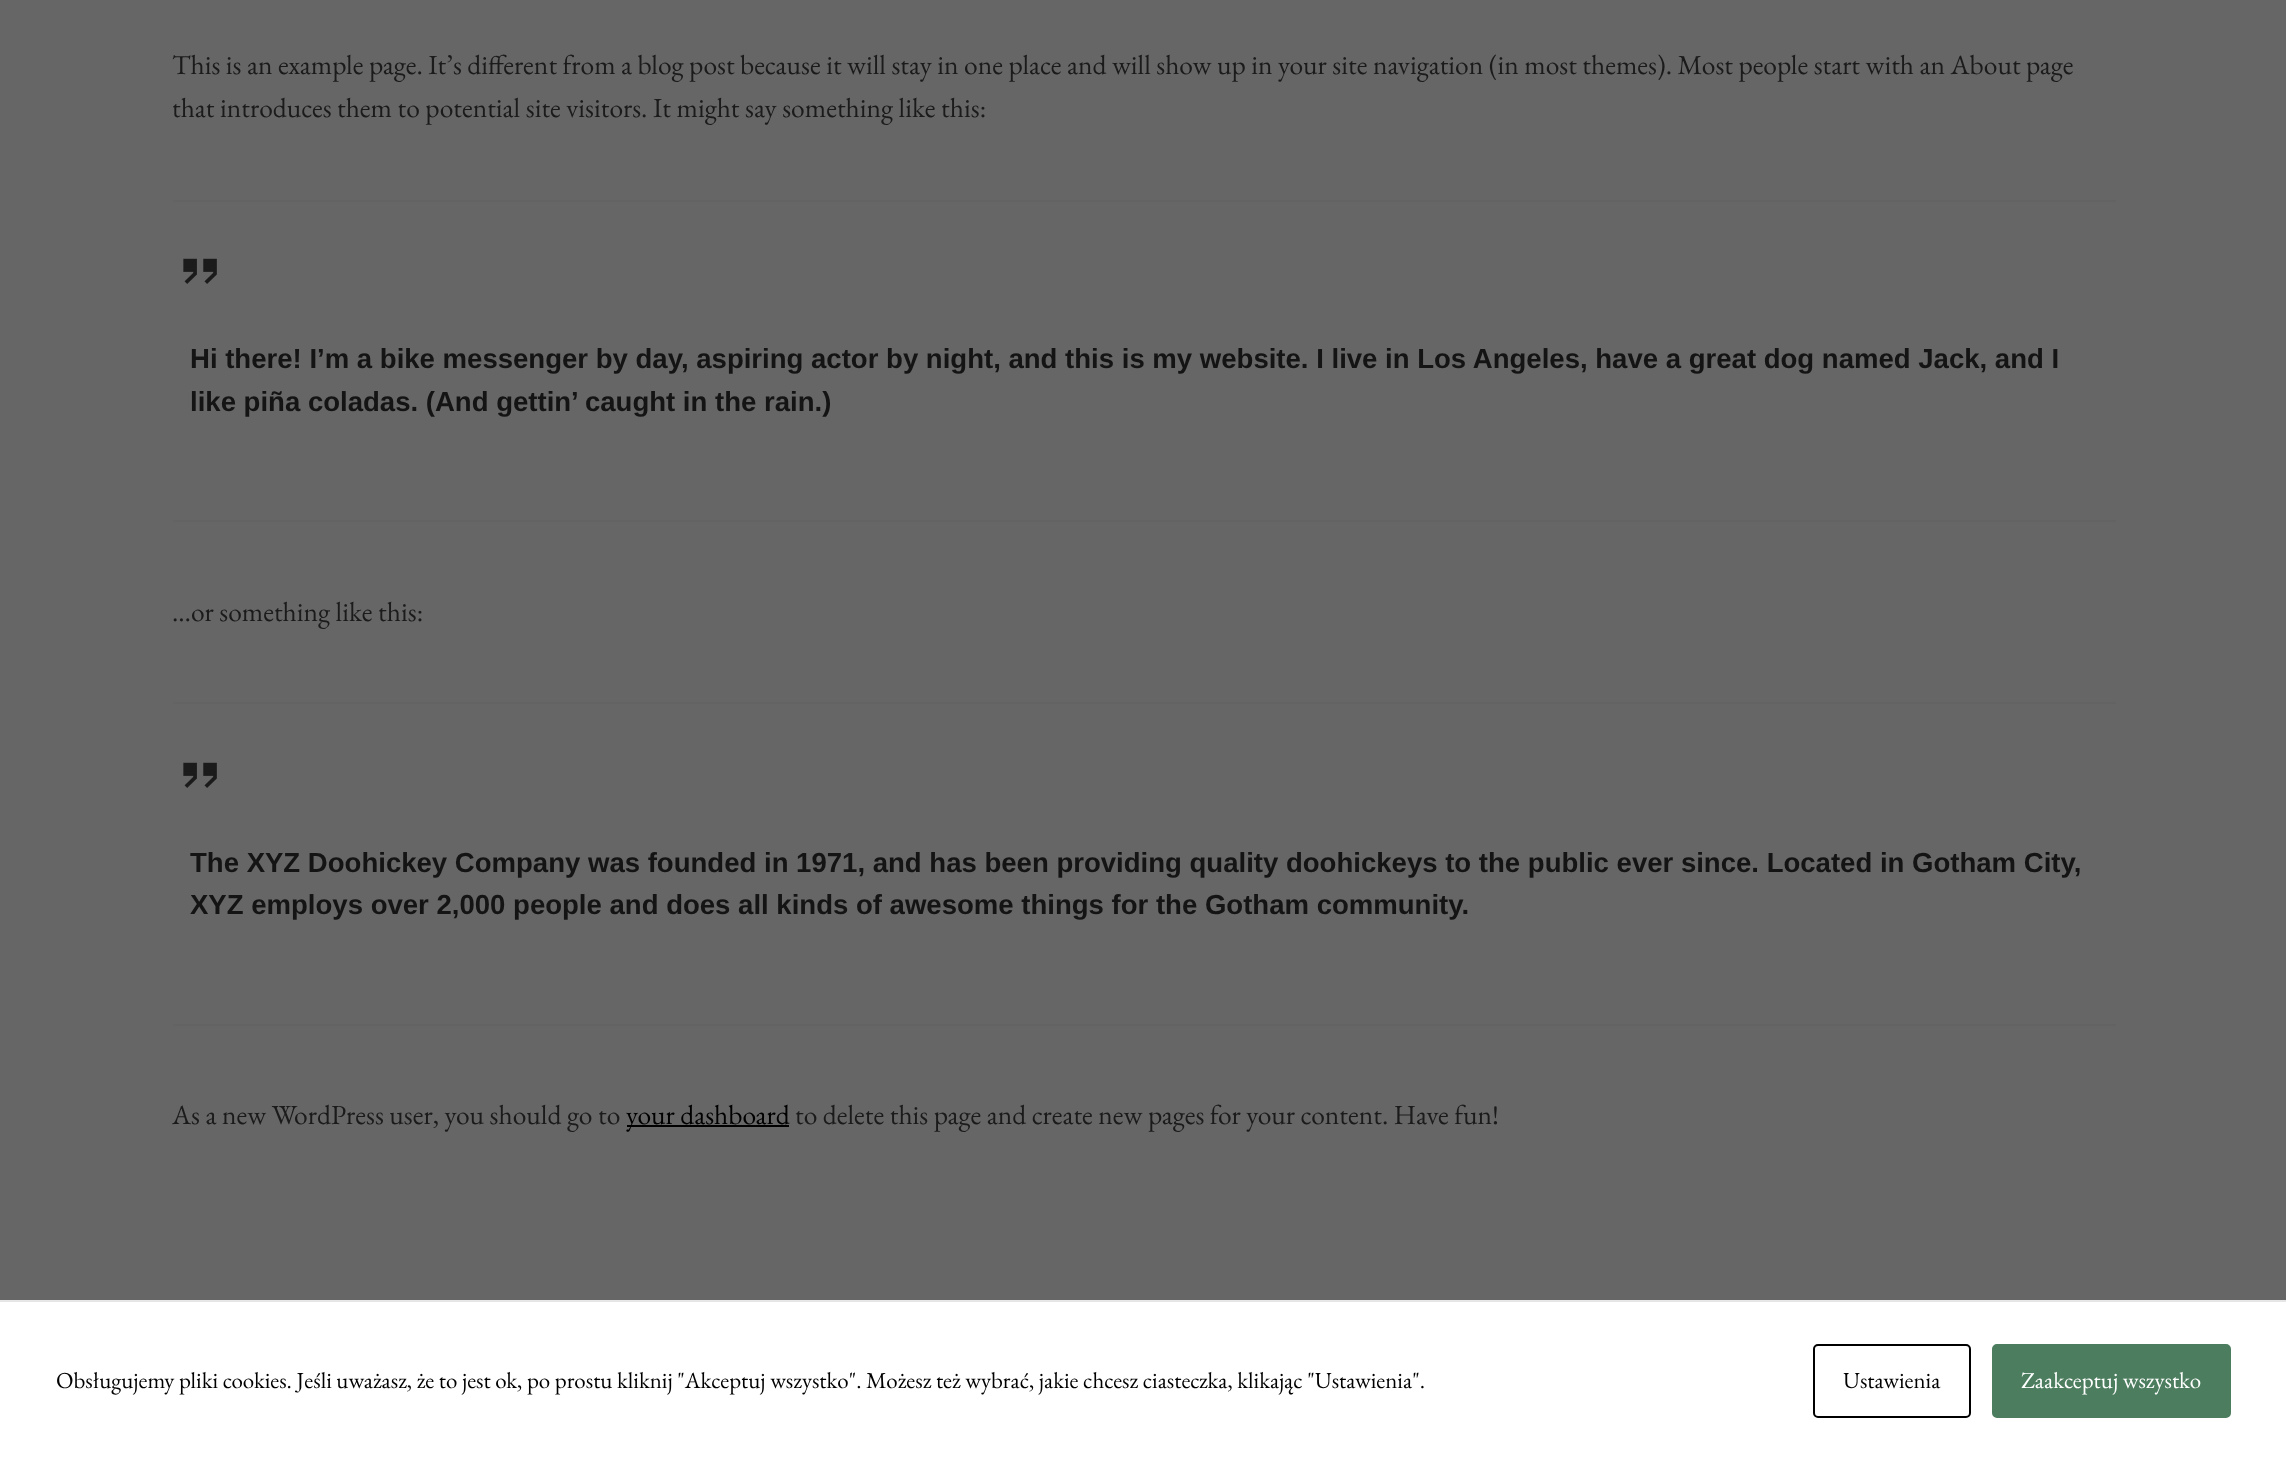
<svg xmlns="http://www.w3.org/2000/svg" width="2286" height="1458">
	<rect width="100%" height="100%" fill="#666666" />
	<g font-family="EB Garamond" font-size="27.55" fill="#1B1B1B">
		<text x="172" y="74">This is an example page. It’s different from a blog post because it will stay in one place and will show up in your site navigation (in most themes). Most people start with an About page</text>
		<text x="172" y="117">that introduces them to potential site visitors. It might say something like this:</text>
	</g>
	<rect x="173" y="200" width="1943" height="2" fill="#636364" />
	<rect x="173" y="520" width="1943" height="2" fill="#636364" />
	<image x="183" y="258" width="34" height="26" href="assets/img1.png" />
	<g font-family="Liberation Sans" font-size="27.55" font-weight="700" fill="#141414">
		<text x="190" y="368">Hi there! I’m a bike messenger by day, aspiring actor by night, and this is my website. I live in Los Angeles, have a great dog named Jack, and I</text>
		<text x="190" y="411">like piña coladas. (And gettin’ caught in the rain.)</text>
	</g>
	<text x="172" y="621" font-family="EB Garamond" font-size="27.55" fill="#1B1B1B">…or something like this:</text>
	<rect x="173" y="702" width="1943" height="2" fill="#636364" />
	<rect x="173" y="1024" width="1943" height="2" fill="#636364" />
	<image x="183" y="762" width="34" height="26" href="assets/img1.png" />
	<g font-family="Liberation Sans" font-size="27.55" font-weight="700" fill="#141414">
		<text x="190" y="872">The XYZ Doohickey Company was founded in 1971, and has been providing quality doohickeys to the public ever since. Located in Gotham City,</text>
		<text x="190" y="914">XYZ employs over 2,000 people and does all kinds of awesome things for the Gotham community.</text>
	</g>
	<text x="172" y="1124" font-family="EB Garamond" font-size="27.55" fill="#1B1B1B">As a new WordPress user, you should go to</text>
	<rect x="627" y="1125" width="162" height="2" fill="#000000" />
	<text x="626" y="1124" font-family="EB Garamond" font-size="27.55" fill="#000000">your dashboard</text>
	<text x="795" y="1124" font-family="EB Garamond" font-size="27.55" fill="#1B1B1B">to delete this page and create new pages for your content. Have fun!</text>
	<rect x="0" y="1302" width="2286" height="156" fill="#FFFFFF" />
	<rect x="0" y="1300" width="2286" height="2" fill="#E6E6E6" />
	<text x="56" y="1388" font-family="EB Garamond" font-size="22.95" fill="#000000">Obsługujemy pliki cookies. Jeśli uważasz, że to jest ok, po prostu kliknij "Akceptuj wszystko". Możesz też wybrać, jakie chcesz ciasteczka, klikając "Ustawienia".</text>
	<rect x="1814" y="1345" width="156" height="72" rx="4" fill="none" stroke="#000000" stroke-width="2" />
	<text x="1843" y="1388" font-family="EB Garamond" font-size="22.95" fill="#000000">Ustawienia</text>
	<rect x="1993" y="1345" width="237" height="72" rx="4" fill="#4B7D5E" stroke="#4B7D5E" stroke-width="2" />
	<text x="2021" y="1388" font-family="EB Garamond" font-size="22.95" fill="#FFFFFF">Zaakceptuj wszystko</text>
</svg>
